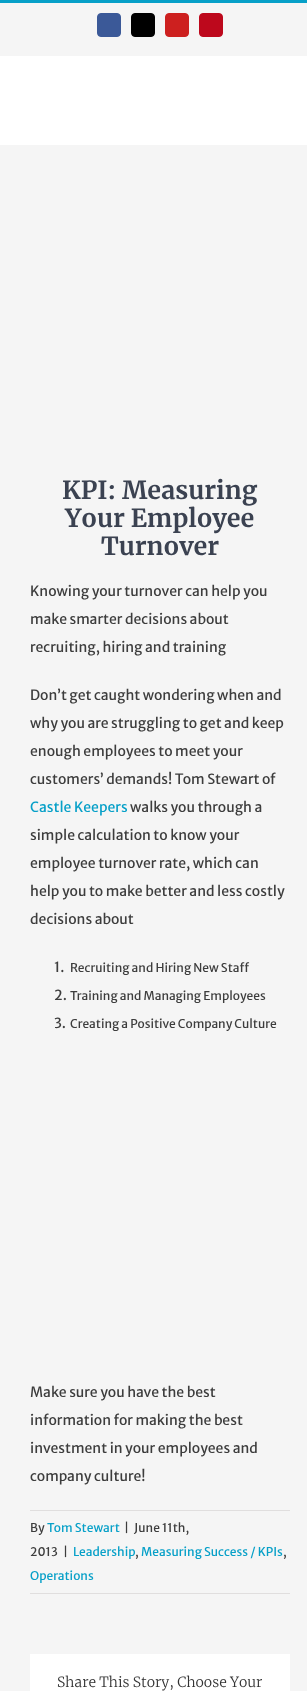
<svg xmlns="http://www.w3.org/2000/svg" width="307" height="1691">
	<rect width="100%" height="100%" fill="#F5F5F5" />
	<rect x="0" y="0" width="307" height="3" fill="#07A0C8" />
	<rect x="97.5" y="13.5" width="23" height="23" rx="3.5" fill="#3B5998" stroke="#3B5998" />
	<rect x="131.5" y="13.5" width="23" height="23" rx="3.5" fill="#000000" stroke="#000000" />
	<rect x="165.5" y="13.5" width="23" height="23" rx="3.5" fill="#CD201F" stroke="#CD201F" />
	<rect x="199.5" y="13.5" width="23" height="23" rx="3.5" fill="#BD081C" stroke="#BD081C" />
	<rect x="0" y="56" width="307" height="89" fill="#FFFFFF" />
	<g font-family="Merriweather" font-size="25" font-weight="700" fill="#3B4251">
		<text x="62" y="499">KPI: Measuring</text>
		<text x="65" y="527">Your Employee</text>
		<text x="101" y="555">Turnover</text>
	</g>
	<g font-family="Merriweather Sans" font-size="14" fill="#3D3D3D">
		<text x="30" y="596">Knowing your turnover can help you</text>
		<text x="30" y="624">make smarter decisions about</text>
		<text x="30" y="652">recruiting, hiring and training</text>
		<text x="30" y="700">Don’t get caught wondering when and</text>
		<text x="30" y="728">why you are struggling to get and keep</text>
		<text x="30" y="756">enough employees to meet your</text>
		<text x="30" y="784">customers’ demands! Tom Stewart of</text>
	</g>
	<text x="30" y="812" font-family="Merriweather Sans" font-size="14" fill="#07A0C8">Castle Keepers</text>
	<g font-family="Merriweather Sans" font-size="14" fill="#3D3D3D">
		<text x="130" y="812">walks you through a</text>
		<text x="30" y="840">simple calculation to know your</text>
		<text x="30" y="868">employee turnover rate, which can</text>
		<text x="30" y="896">help you to make better and less costly</text>
		<text x="30" y="924">decisions about</text>
		<text x="54" y="972">1.</text>
	</g>
	<text x="70" y="972" font-family="Merriweather Sans" font-size="12" fill="#3D3D3D">Recruiting and Hiring New Staff</text>
	<text x="54" y="1000" font-family="Merriweather Sans" font-size="14" fill="#3D3D3D">2.</text>
	<text x="70" y="1000" font-family="Merriweather Sans" font-size="12" fill="#3D3D3D">Training and Managing Employees</text>
	<text x="54" y="1028" font-family="Merriweather Sans" font-size="14" fill="#3D3D3D">3.</text>
	<text x="70" y="1028" font-family="Merriweather Sans" font-size="12" fill="#3D3D3D">Creating a Positive Company Culture</text>
	<g font-family="Merriweather Sans" font-size="14" fill="#3D3D3D">
		<text x="30" y="1397">Make sure you have the best</text>
		<text x="30" y="1425">information for making the best</text>
		<text x="30" y="1453">investment in your employees and</text>
		<text x="30" y="1481">company culture!</text>
	</g>
	<rect x="30" y="1510" width="260" height="1" fill="#E0DEDE" />
	<rect x="30" y="1593" width="260" height="1" fill="#E0DEDE" />
	<text x="30" y="1532" font-family="Merriweather Sans" font-size="12" fill="#3D3D3D">By</text>
	<text x="47" y="1532" font-family="Merriweather Sans" font-size="12" fill="#07A0C8">Tom Stewart</text>
	<g font-family="Merriweather Sans" font-size="12" fill="#3D3D3D">
		<text x="124" y="1532">|</text>
		<text x="134" y="1532">June 11th,</text>
		<text x="30" y="1556">2013</text>
		<text x="63" y="1556">|</text>
	</g>
	<text x="73" y="1556" font-family="Merriweather Sans" font-size="12" fill="#07A0C8">Leadership</text>
	<text x="135" y="1556" font-family="Merriweather Sans" font-size="12" fill="#3D3D3D">,</text>
	<text x="141" y="1556" font-family="Merriweather Sans" font-size="12" fill="#07A0C8">Measuring Success / KPIs</text>
	<text x="283" y="1556" font-family="Merriweather Sans" font-size="12" fill="#3D3D3D">,</text>
	<text x="30" y="1580" font-family="Merriweather Sans" font-size="12" fill="#07A0C8">Operations</text>
	<rect x="30" y="1654" width="260" height="37" fill="#FFFFFF" />
	<text x="57" y="1687" font-family="Merriweather" font-size="14" font-weight="300" fill="#333333">Share This Story, Choose Your</text>
</svg>
